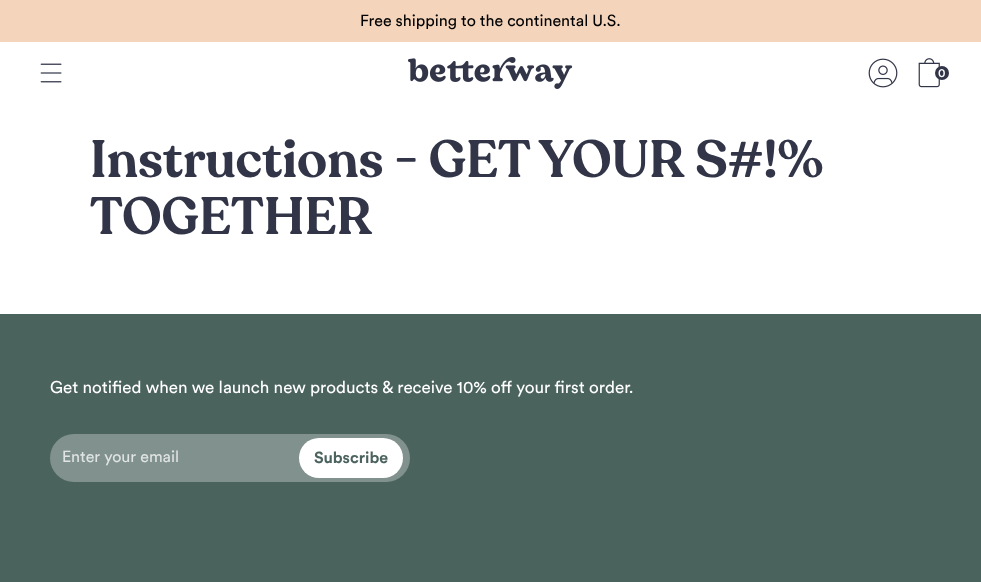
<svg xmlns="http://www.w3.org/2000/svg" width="981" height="582">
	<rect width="100%" height="100%" fill="#FFFFFF" />
	<rect x="0" y="0" width="981" height="42" fill="#F4D4BA" />
	<text x="360" y="26" font-family="Circular" font-size="16" fill="#000000">Free shipping to the continental U.S.</text>
	<image x="40" y="63" width="22" height="20" href="assets/img1.png" />
	<image x="408" y="57" width="165" height="32" href="assets/img2.png" />
	<image x="868" y="58" width="30" height="30" href="assets/img3.png" />
	<image x="918" y="58" width="22" height="30" href="assets/img4.png" />
	<circle cx="942" cy="73" r="7" fill="#313547" />
	<text x="938" y="77" font-family="Circular" font-size="12" font-weight="500" fill="#FFFFFF">0</text>
	<g font-family="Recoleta" font-size="52" font-weight="600" fill="#313547">
		<text x="90" y="177">Instructions - GET YOUR S#!%</text>
		<text x="90" y="234">TOGETHER</text>
	</g>
	<rect x="0" y="314" width="981" height="268" fill="#4B635D" />
	<text x="50" y="393" font-family="Circular" font-size="17" fill="#FFFFFF">Get notified when we launch new products &amp; receive 10% off your first order.</text>
	<rect x="50" y="434" width="360" height="48" rx="24" fill="#81928E" />
	<text x="62" y="462" font-family="Circular" font-size="16" fill="#E0E4E3">Enter your email</text>
	<rect x="299" y="438" width="104" height="40" rx="20" fill="#FFFFFF" />
	<text x="314" y="463" font-family="Circular" font-size="16" font-weight="700" fill="#4B635D">Subscribe</text>
</svg>
